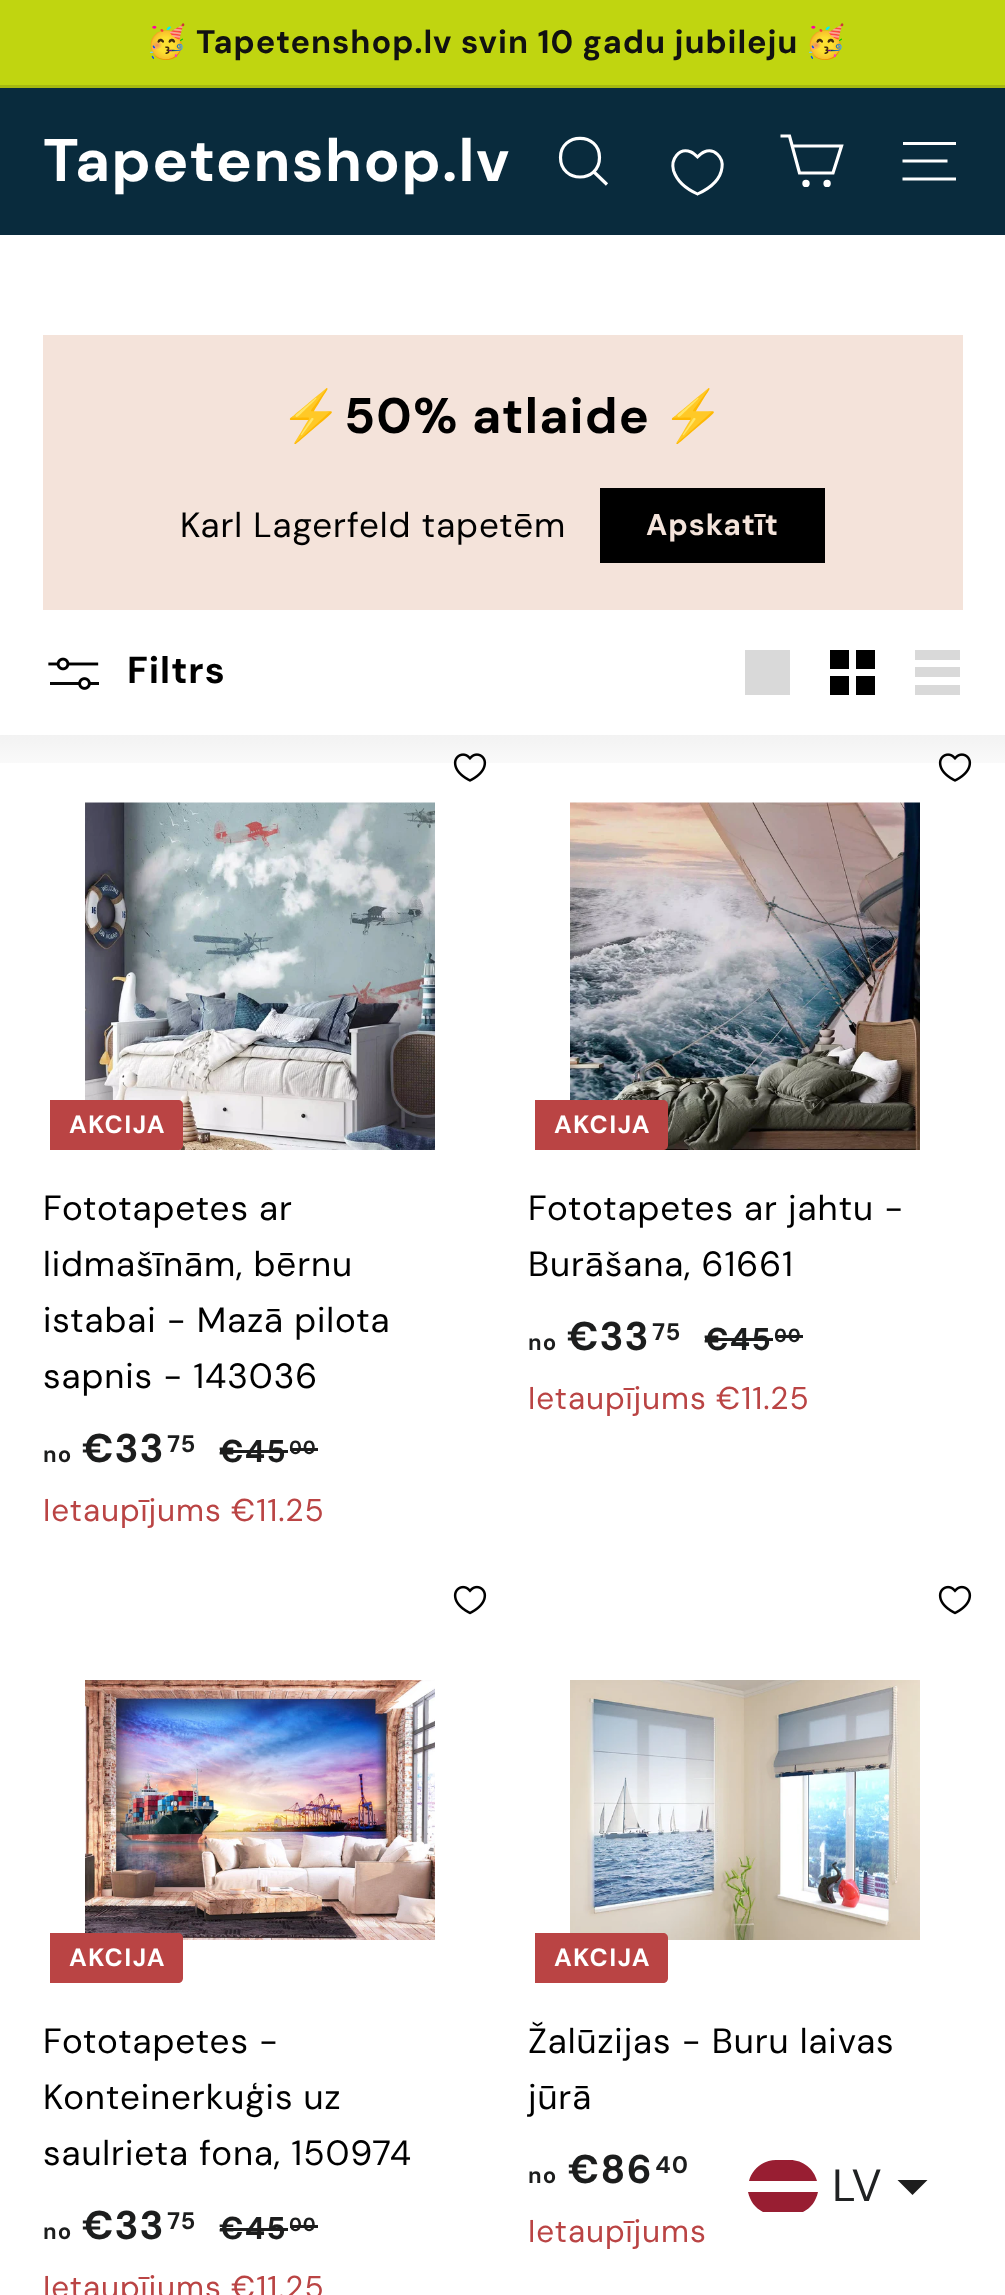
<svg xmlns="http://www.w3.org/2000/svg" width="1005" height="2295">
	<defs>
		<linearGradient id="g1" gradientUnits="userSpaceOnUse" x1="503" y1="735" x2="503" y2="785"><stop offset="0" stop-color="#000000" stop-opacity="0.05" /><stop offset="1" stop-color="#000000" stop-opacity="0" /></linearGradient>
	</defs>
	<rect width="100%" height="100%" fill="#FFFFFF" />
	<rect x="0" y="0" width="1005" height="85" fill="#C0D510" />
	<text x="146" y="53" font-family="Noto Color Emoji" font-size="32.5" font-weight="700" letter-spacing="0.9" fill="#111111">🥳</text>
	<text x="196" y="53" font-family="'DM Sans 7'" font-size="32.5" font-weight="700" letter-spacing="0.9" fill="#111111">Tapetenshop.lv svin 10 gadu jubileju</text>
	<text x="805" y="53" font-family="Noto Color Emoji" font-size="32.5" font-weight="700" letter-spacing="0.9" fill="#111111">🥳</text>
	<rect x="0" y="85" width="1005" height="3" fill="#A6B810" />
	<rect x="0" y="88" width="1005" height="147" fill="#092B3D" />
	<text x="43" y="181" font-family="'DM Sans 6'" font-size="60" font-weight="700" letter-spacing="1.5" fill="#FFFFFF">Tapetenshop.lv</text>
	<path d="M599.5 157.5C599.5 183.5 560.5 183.5 560.5 157.5C560.5 132 599.5 132 599.5 157.5M607 184.5L594 172" fill="none" stroke="#FFFFFF" stroke-width="3.2" />
	<path d="M697.5 194C687.5 189.5 677 181.5 673.5 170.5C670.5 159.5 679 147 691 152C693.5 153 695.5 155 697.5 157C699.5 155 701.5 153 704 152C714.5 147.5 723.5 157.5 722 167.5C720.5 180 708.5 189 697.5 194Z" fill="none" stroke="#FFFFFF" stroke-width="3" />
	<path d="M792.5 146H841.5L833 173H799.5L789.5 136H780.5" fill="none" stroke="#FFFFFF" stroke-width="3.2" />
	<circle cx="806" cy="183.4" r="2.1" fill="#FFFFFF" stroke="#FFFFFF" stroke-width="3.2" />
	<circle cx="827.1" cy="183.4" r="2.1" fill="#FFFFFF" stroke="#FFFFFF" stroke-width="3.2" />
	<rect x="903" y="142" width="53" height="3" fill="#FFFFFF" />
	<path d="M902.5 161H947.5M902.5 179H956" fill="none" stroke="#FFFFFF" stroke-width="3.2" />
	<rect x="43" y="335" width="920" height="275" fill="#F4E3DA" />
	<text x="280" y="433" font-family="Noto Color Emoji" font-size="50" font-weight="700" letter-spacing="1.25" fill="#000000">⚡</text>
	<text x="344" y="433" font-family="'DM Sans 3'" font-size="50" font-weight="700" letter-spacing="1.25" fill="#000000">50% atlaide</text>
	<text x="662" y="433" font-family="Noto Color Emoji" font-size="50" font-weight="700" letter-spacing="1.25" fill="#000000">⚡</text>
	<text x="180" y="537" font-family="DM Sans" font-size="35" letter-spacing="0.9" fill="#000000">Karl Lagerfeld tapetēm</text>
	<rect x="600" y="488" width="225" height="75" fill="#000000" />
	<text x="646" y="535" font-family="'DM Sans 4'" font-size="30" font-weight="700" letter-spacing="0.9" fill="#F4E3DA">Apskatīt</text>
	<image x="48" y="657" width="51" height="33" href="assets/img1.png" />
	<text x="127" y="683" font-family="'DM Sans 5'" font-size="37.5" font-weight="700" letter-spacing="1" fill="#000000">Filtrs</text>
	<rect x="745" y="650" width="45" height="45" fill="#D9D9D9" />
	<path d="M830 650H849V669H830ZM856 650H875V669H856ZM830 676H849V695H830ZM856 676H875V695H856Z" fill="#000000" />
	<path d="M915 650H960V660H915ZM915 667H960V677H915ZM915 685H960V695H915Z" fill="#D9D9D9" />
	<image x="453" y="753" width="34" height="29" href="assets/img2.png" />
	<image x="938" y="753" width="34" height="29" href="assets/img2.png" />
	<rect x="0" y="735" width="1005" height="28" fill="url(#g1)" />
	<image x="85" y="802" width="350" height="348" href="assets/img3.png" />
	<path d="M50 1100H178C181 1100 183 1102 183 1105V1145C183 1148 181 1150 178 1150H50Z" fill="#BA4444" />
	<text x="69" y="1133" font-family="DM Sans" font-size="25" font-weight="700" letter-spacing="1.25" fill="#FFFFFF">AKCIJA</text>
	<g font-family="DM Sans" font-size="35" letter-spacing="0.9" fill="#000000">
		<text x="43" y="1220">Fototapetes ar</text>
		<text x="43" y="1276">lidmašīnām, bērnu</text>
		<text x="43" y="1332">istabai - Mazā pilota</text>
		<text x="43" y="1388">sapnis - 143036</text>
	</g>
	<text x="82" y="1462" font-family="'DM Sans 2'" font-size="40" font-weight="700" letter-spacing="0.9" fill="#1C1D1D">€33</text>
	<text x="167" y="1452" font-family="DM Sans" font-size="24" font-weight="700" letter-spacing="0.9" fill="#1C1D1D">75</text>
	<text x="43" y="1462" font-family="DM Sans" font-size="22" font-weight="700" letter-spacing="0.9" fill="#1C1D1D">no</text>
	<text x="219" y="1462" font-family="DM Sans" font-size="31.5" font-weight="700" letter-spacing="0.9" fill="#1C1D1D">€45</text>
	<rect x="220" y="1450" width="68" height="3" fill="#1C1D1D" />
	<text x="289" y="1454" font-family="DM Sans" font-size="19" font-weight="700" letter-spacing="0.9" fill="#1C1D1D">00</text>
	<rect x="290" y="1448" width="28" height="3" fill="#1C1D1D" />
	<text x="43" y="1521" font-family="'DM Sans 2'" font-size="31.5" letter-spacing="0.9" fill="#BA4444">Ietaupījums €11.25</text>
	<image x="570" y="802" width="350" height="348" href="assets/img4.png" />
	<path d="M535 1100H663C666 1100 668 1102 668 1105V1145C668 1148 666 1150 663 1150H535Z" fill="#BA4444" />
	<text x="554" y="1133" font-family="DM Sans" font-size="25" font-weight="700" letter-spacing="1.25" fill="#FFFFFF">AKCIJA</text>
	<g font-family="DM Sans" font-size="35" letter-spacing="0.9" fill="#000000">
		<text x="528" y="1220">Fototapetes ar jahtu -</text>
		<text x="528" y="1276">Burāšana, 61661</text>
	</g>
	<text x="567" y="1350" font-family="'DM Sans 2'" font-size="40" font-weight="700" letter-spacing="0.9" fill="#1C1D1D">€33</text>
	<text x="652" y="1340" font-family="DM Sans" font-size="24" font-weight="700" letter-spacing="0.9" fill="#1C1D1D">75</text>
	<text x="528" y="1350" font-family="DM Sans" font-size="22" font-weight="700" letter-spacing="0.9" fill="#1C1D1D">no</text>
	<text x="704" y="1350" font-family="DM Sans" font-size="31.5" font-weight="700" letter-spacing="0.9" fill="#1C1D1D">€45</text>
	<rect x="705" y="1338" width="68" height="3" fill="#1C1D1D" />
	<text x="774" y="1342" font-family="DM Sans" font-size="19" font-weight="700" letter-spacing="0.9" fill="#1C1D1D">00</text>
	<rect x="775" y="1335" width="28" height="3" fill="#1C1D1D" />
	<text x="528" y="1409" font-family="'DM Sans 2'" font-size="31.5" letter-spacing="0.9" fill="#BA4444">Ietaupījums €11.25</text>
	<image x="453" y="1585" width="34" height="30" href="assets/img5.png" />
	<image x="85" y="1680" width="350" height="260" href="assets/img6.png" />
	<path d="M50 1933H178C181 1933 183 1935 183 1938V1978C183 1981 181 1983 178 1983H50Z" fill="#BA4444" />
	<text x="69" y="1966" font-family="DM Sans" font-size="25" font-weight="700" letter-spacing="1.25" fill="#FFFFFF">AKCIJA</text>
	<g font-family="DM Sans" font-size="35" letter-spacing="0.9" fill="#000000">
		<text x="43" y="2053">Fototapetes -</text>
		<text x="43" y="2109">Konteinerkuģis uz</text>
		<text x="43" y="2165">saulrieta fona, 150974</text>
	</g>
	<text x="82" y="2239" font-family="'DM Sans 2'" font-size="40" font-weight="700" letter-spacing="0.9" fill="#1C1D1D">€33</text>
	<text x="167" y="2229" font-family="DM Sans" font-size="24" font-weight="700" letter-spacing="0.9" fill="#1C1D1D">75</text>
	<text x="43" y="2239" font-family="DM Sans" font-size="22" font-weight="700" letter-spacing="0.9" fill="#1C1D1D">no</text>
	<text x="219" y="2239" font-family="DM Sans" font-size="31.5" font-weight="700" letter-spacing="0.9" fill="#1C1D1D">€45</text>
	<rect x="220" y="2228" width="68" height="3" fill="#1C1D1D" />
	<text x="289" y="2231" font-family="DM Sans" font-size="19" font-weight="700" letter-spacing="0.9" fill="#1C1D1D">00</text>
	<rect x="290" y="2225" width="28" height="3" fill="#1C1D1D" />
	<text x="43" y="2298" font-family="'DM Sans 2'" font-size="31.5" letter-spacing="0.9" fill="#BA4444">Ietaupījums €11.25</text>
	<image x="938" y="1585" width="34" height="30" href="assets/img5.png" />
	<image x="570" y="1680" width="350" height="260" href="assets/img7.png" />
	<path d="M535 1933H663C666 1933 668 1935 668 1938V1978C668 1981 666 1983 663 1983H535Z" fill="#BA4444" />
	<text x="554" y="1966" font-family="DM Sans" font-size="25" font-weight="700" letter-spacing="1.25" fill="#FFFFFF">AKCIJA</text>
	<g font-family="DM Sans" font-size="35" letter-spacing="0.9" fill="#000000">
		<text x="528" y="2053">Žalūzijas - Buru laivas</text>
		<text x="528" y="2109">jūrā</text>
	</g>
	<text x="568" y="2183" font-family="DM Sans" font-size="40" font-weight="700" letter-spacing="0.9" fill="#1C1D1D">€86</text>
	<text x="655" y="2173" font-family="DM Sans" font-size="24" font-weight="700" letter-spacing="0.9" fill="#1C1D1D">40</text>
	<text x="528" y="2183" font-family="DM Sans" font-size="22" font-weight="700" letter-spacing="0.9" fill="#1C1D1D">no</text>
	<text x="528" y="2242" font-family="'DM Sans 2'" font-size="31.5" letter-spacing="0.9" fill="#BA4444">Ietaupījums</text>
	<path d="M763 2212C755 2208 750 2201 748 2192H818C816 2201 811 2208 803 2212ZM776 2160H790C803 2160 814 2169 817 2181H749C752 2169 763 2160 776 2160Z" fill="#981E32" fill-rule="evenodd" />
	<text x="832" y="2201" font-family="'DM Sans 3'" font-size="45" letter-spacing="0.9" fill="#202223">LV</text>
	<path d="M897.5 2180H927.5L912.5 2195Z" fill="#1D1D1D" />
</svg>
